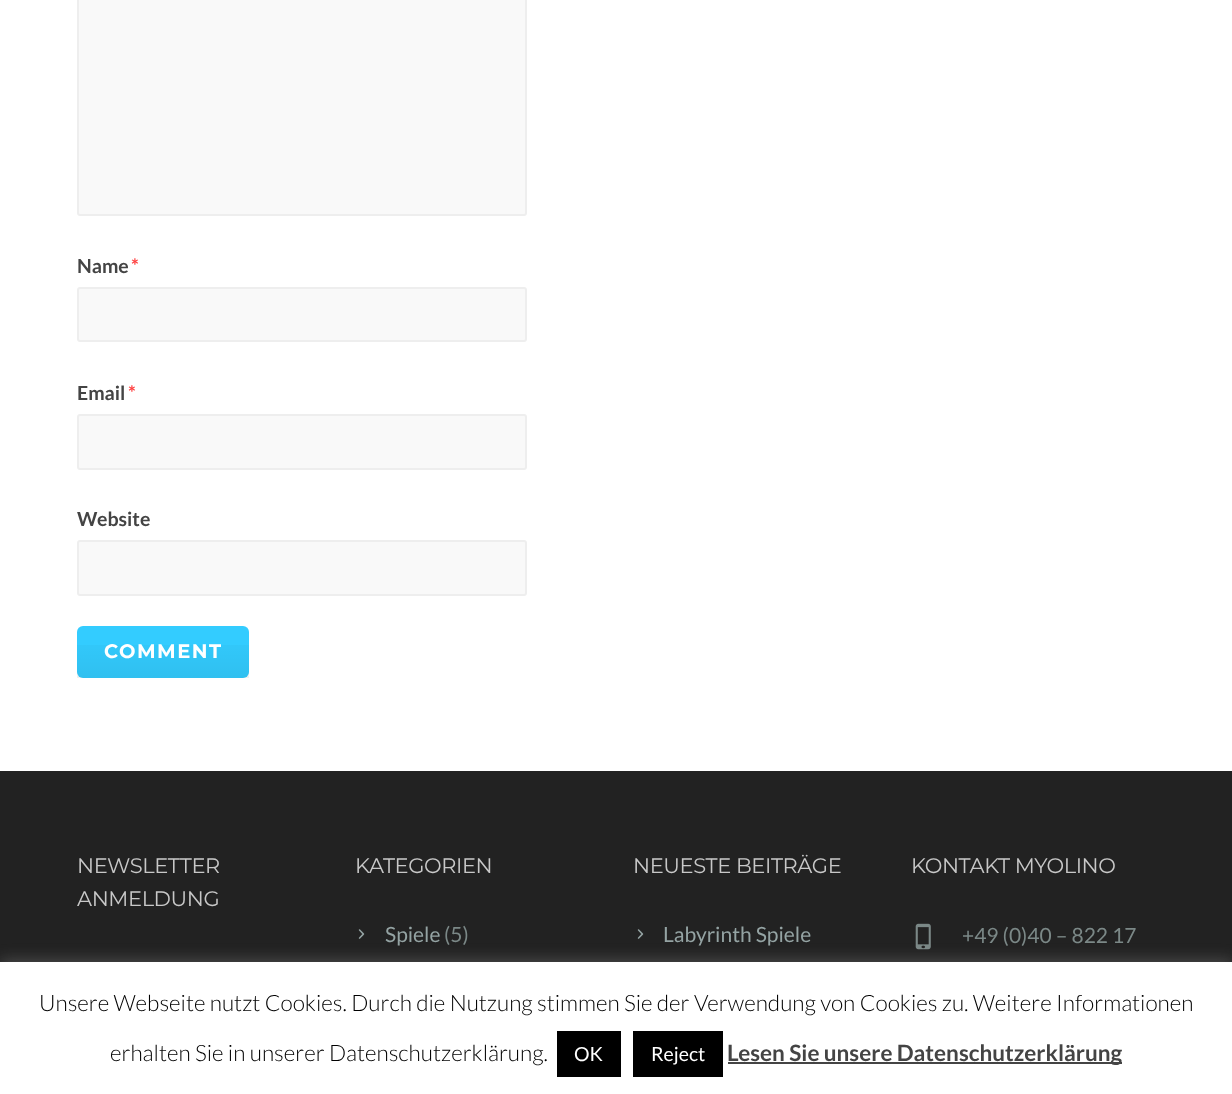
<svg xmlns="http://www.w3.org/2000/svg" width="1232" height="1094">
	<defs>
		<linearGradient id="g1" gradientUnits="userSpaceOnUse" x1="163" y1="626" x2="163" y2="678"><stop offset="0" stop-color="#000000" stop-opacity="0" /><stop offset="1" stop-color="#000000" stop-opacity="0.06" /></linearGradient>
	</defs>
	<rect width="100%" height="100%" fill="#FFFFFF" />
	<rect x="78" y="-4" width="448" height="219" rx="2" fill="#F9F9F9" stroke="#EEEEEE" stroke-width="2" />
	<text x="77" y="273" font-family="Lato" font-size="19.5" font-weight="700" fill="#444444">Name</text>
	<text x="131" y="273" font-family="Lato" font-size="19.5" font-weight="700" fill="#FF4242">*</text>
	<rect x="78" y="288" width="448" height="53" rx="2" fill="#F9F9F9" stroke="#EEEEEE" stroke-width="2" />
	<text x="77" y="400" font-family="Lato" font-size="19.5" font-weight="700" fill="#444444">Email</text>
	<text x="128" y="400" font-family="Lato" font-size="19.5" font-weight="700" fill="#FF4242">*</text>
	<rect x="78" y="415" width="448" height="54" rx="2" fill="#F9F9F9" stroke="#EEEEEE" stroke-width="2" />
	<text x="77" y="526" font-family="Lato" font-size="19.5" font-weight="700" fill="#444444">Website</text>
	<rect x="78" y="541" width="448" height="54" rx="2" fill="#F9F9F9" stroke="#EEEEEE" stroke-width="2" />
	<rect x="77" y="626" width="172" height="52" rx="6" fill="#33CCFF" />
	<rect x="77" y="645" width="172" height="33" fill="url(#g1)" />
	<text x="104" y="658" font-family="Montserrat" font-size="19.5" font-weight="700" letter-spacing="1.5" fill="#FFFFFF">COMMENT</text>
	<rect x="0" y="771" width="1232" height="191" fill="#222222" />
	<g font-family="Montserrat" font-size="21" letter-spacing="-0.4" fill="#C8C8C8">
		<text x="77" y="873">NEWSLETTER</text>
		<text x="77" y="906">ANMELDUNG</text>
		<text x="355" y="873">KATEGORIEN</text>
	</g>
	<image x="358" y="929" width="7" height="10" href="assets/img1.png" />
	<text x="385" y="942" font-family="Lato" font-size="21" fill="#94A3A3">Spiele</text>
	<text x="444" y="942" font-family="Lato" font-size="21" fill="#7B8887">(5)</text>
	<text x="633" y="873" font-family="Montserrat" font-size="21" letter-spacing="-0.4" fill="#C8C8C8">NEUESTE BEITRÄGE</text>
	<image x="637" y="929" width="7" height="10" href="assets/img1.png" />
	<text x="663" y="942" font-family="Lato" font-size="21" fill="#94A3A3">Labyrinth Spiele</text>
	<text x="911" y="873" font-family="Montserrat" font-size="21" letter-spacing="-0.4" fill="#C8C8C8">KONTAKT MYOLINO</text>
	<image x="915" y="923" width="16" height="27" href="assets/img2.png" />
	<text x="962" y="943" font-family="Lato" font-size="21" fill="#7B8887">+49 (0)40 – 822 17</text>
	<rect x="0" y="960" width="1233" height="134" fill="#ACABAB" fill-opacity="0.3" filter="blur(7.5px)" />
	<rect x="0" y="962" width="1232" height="132" fill="#FFFFFF" />
	<g font-family="Lato" font-size="22.5" font-weight="300" fill="#000000">
		<text x="39" y="1011">Unsere Webseite nutzt Cookies. Durch die Nutzung stimmen Sie der Verwendung von Cookies zu. Weitere Informationen</text>
		<text x="110" y="1061">erhalten Sie in unserer Datenschutzerklärung.</text>
	</g>
	<rect x="557" y="1031" width="64" height="46" fill="#000000" />
	<text x="574" y="1061" font-family="Lato" font-size="19.5" fill="#FFFFFF">OK</text>
	<rect x="633" y="1031" width="90" height="46" fill="#000000" />
	<text x="651" y="1061" font-family="Lato" font-size="19.5" fill="#FFFFFF">Reject</text>
	<rect x="728" y="1062" width="394" height="2" fill="#444444" />
	<text x="727" y="1061" font-family="Lato" font-size="22.5" font-weight="700" fill="#444444">Lesen Sie unsere Datenschutzerklärung</text>
</svg>
